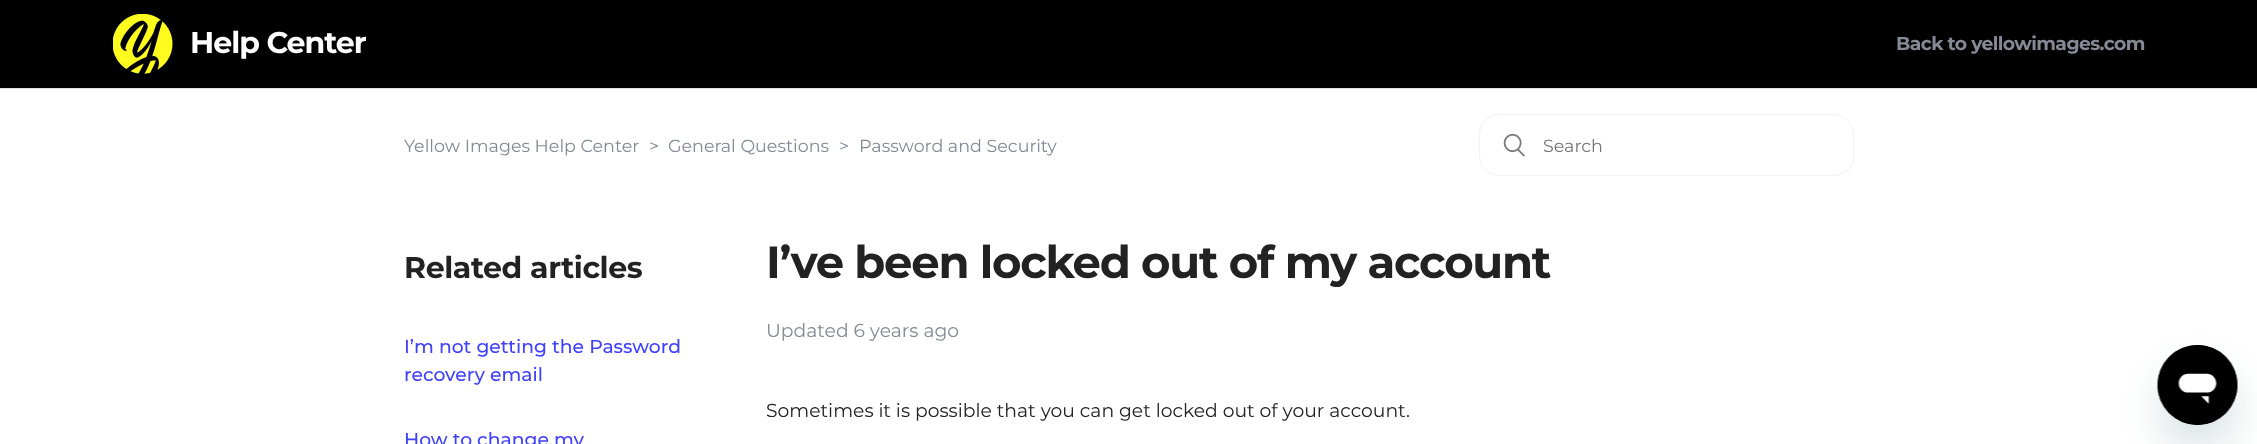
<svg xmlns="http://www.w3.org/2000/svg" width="2257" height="444">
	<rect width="100%" height="100%" fill="#FFFFFF" />
	<rect x="0" y="0" width="2257" height="88" fill="#000000" />
	<image x="113" y="14" width="60" height="60" href="assets/img1.png" />
	<text x="190" y="53" font-family="Montserrat" font-size="30" font-weight="700" letter-spacing="-1" fill="#FFFFFF">Help Center</text>
	<text x="1896" y="50" font-family="Montserrat" font-size="18.75" font-weight="700" letter-spacing="-0.6" fill="#858995">Back to yellowimages.com</text>
	<rect x="0" y="88" width="2257" height="1" fill="#DDDDDD" />
	<g font-family="Montserrat" font-size="17.5" fill="#858995">
		<text x="404" y="152">Yellow Images Help Center</text>
		<text x="649" y="152">&gt;</text>
		<text x="668" y="152">General Questions</text>
		<text x="839" y="152">&gt;</text>
		<text x="859" y="152">Password and Security</text>
	</g>
	<rect x="1479.5" y="114.5" width="374" height="61" rx="19.5" fill="none" stroke="#F2F2F2" />
	<image x="1503" y="133" width="22" height="24" href="assets/img2.png" />
	<text x="1543" y="152" font-family="Montserrat" font-size="17.5" fill="#757575">Search</text>
	<text x="404" y="278" font-family="Montserrat" font-size="30" font-weight="700" letter-spacing="-0.4" fill="#222222">Related articles</text>
	<g font-family="Montserrat" font-size="18.75" font-weight="500" fill="#4040FF">
		<text x="404" y="353">I’m not getting the Password</text>
		<text x="404" y="381">recovery email</text>
		<text x="404" y="446">How to change my</text>
	</g>
	<text x="766" y="278" font-family="Montserrat" font-size="45" font-weight="700" letter-spacing="-1.25" fill="#222222">I’ve been locked out of my account</text>
	<text x="766" y="337" font-family="Montserrat" font-size="18.75" fill="#858995">Updated 6 years ago</text>
	<text x="766" y="417" font-family="Montserrat" font-size="18.75" fill="#222222">Sometimes it is possible that you can get locked out of your account.</text>
	<rect x="2158" y="370" width="80" height="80" rx="40" fill="#17494D" fill-opacity="0.15" filter="blur(19px)" />
	<image x="2157" y="345" width="81" height="80" href="assets/img3.png" />
</svg>
